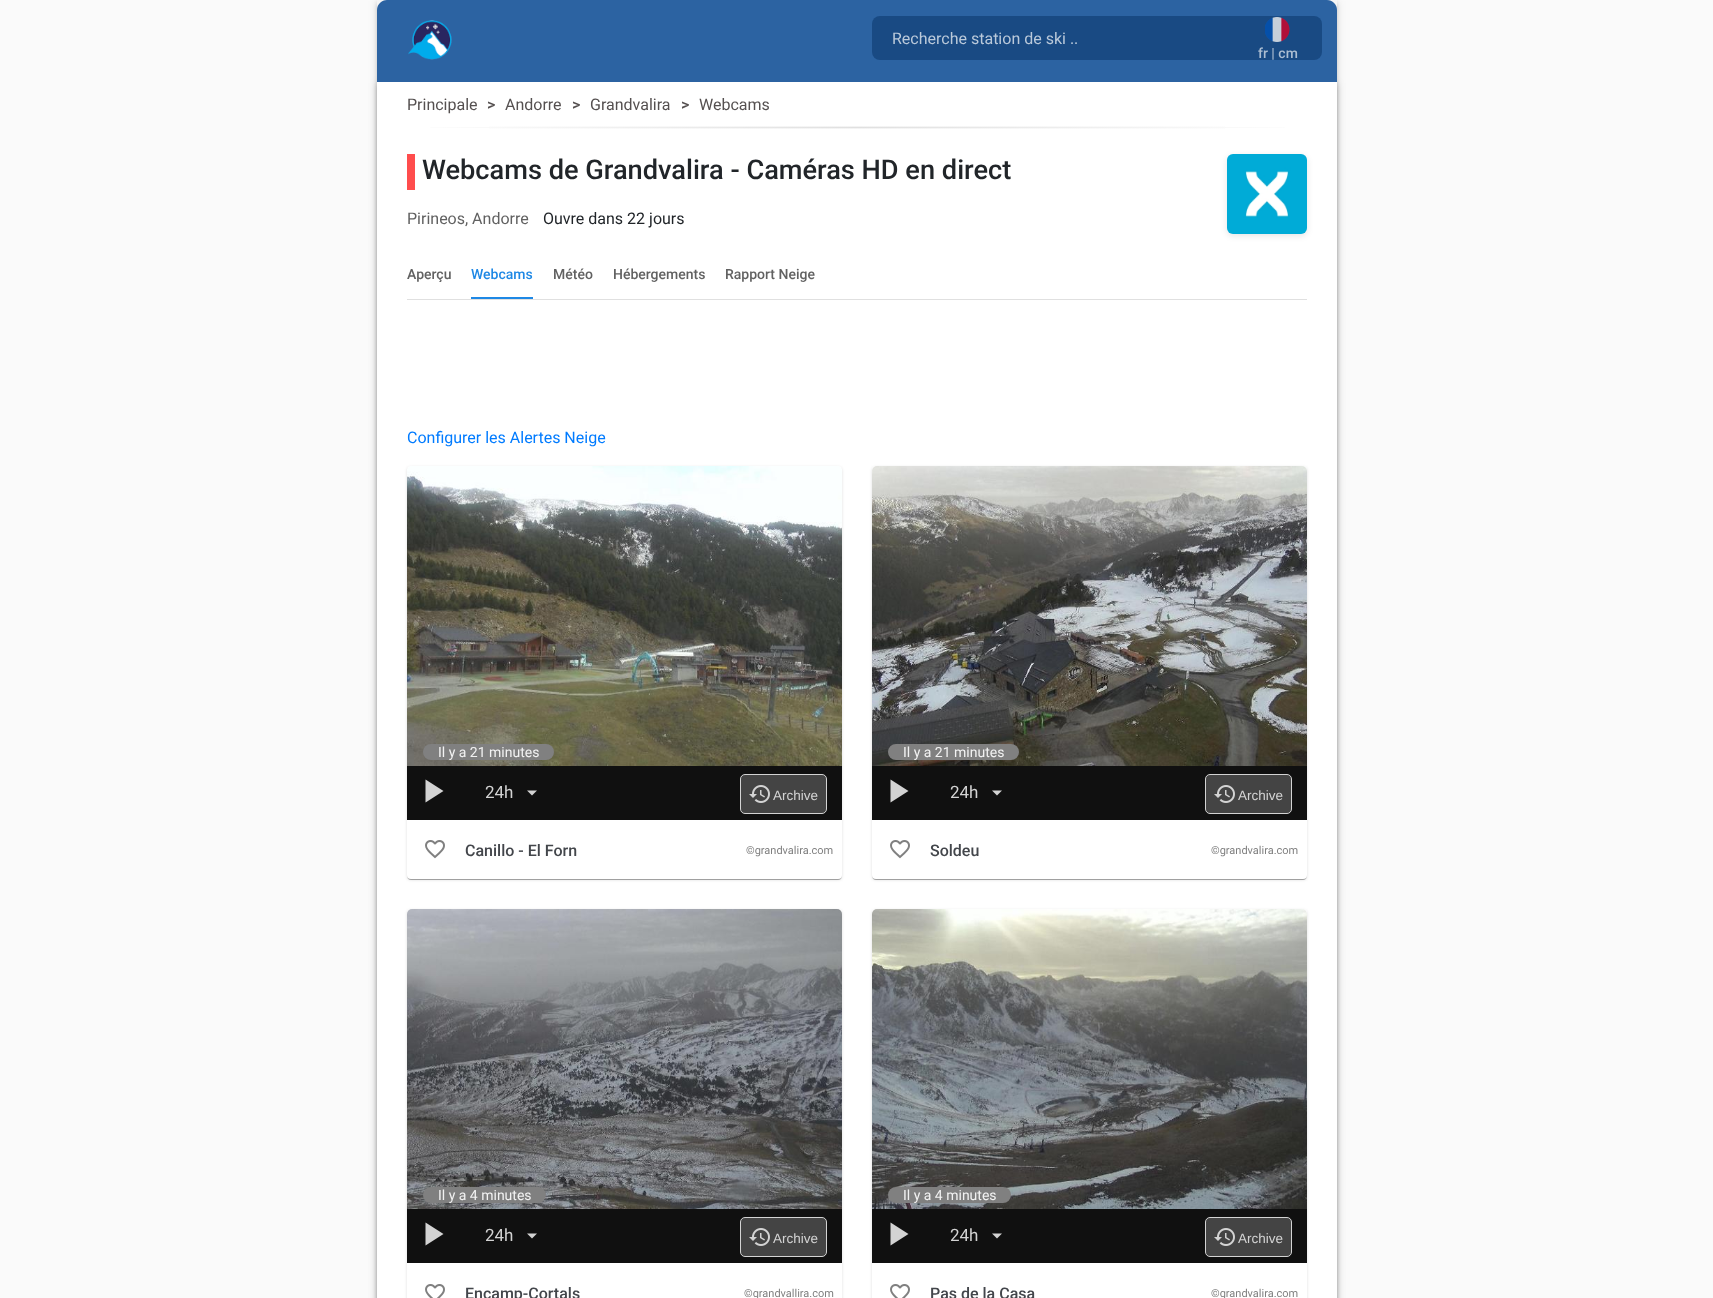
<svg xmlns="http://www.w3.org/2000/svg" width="1713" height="1298">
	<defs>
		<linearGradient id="g1" gradientUnits="userSpaceOnUse" x1="392" y1="128" x2="1322" y2="127"><stop offset="0" stop-color="#FFFFFF" /><stop offset="0.5" stop-color="#E0E0E0" /><stop offset="1" stop-color="#FFFFFF" /></linearGradient>
		<linearGradient id="g2" gradientUnits="userSpaceOnUse" x1="392" y1="127" x2="1322" y2="126"><stop offset="0" stop-color="#FFFFFF" /><stop offset="0.5" stop-color="#F3F3F3" /><stop offset="1" stop-color="#FFFFFF" /></linearGradient>
		<linearGradient id="g3" gradientUnits="userSpaceOnUse" x1="392" y1="129" x2="1322" y2="128"><stop offset="0" stop-color="#FFFFFF" /><stop offset="0.5" stop-color="#F3F3F3" /><stop offset="1" stop-color="#FFFFFF" /></linearGradient>
	</defs>
	<rect width="100%" height="100%" fill="#FAFAFA" />
	<rect x="377" y="1" width="960" height="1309" fill="#000000" fill-opacity="0.12" filter="blur(4px)" />
	<rect x="377" y="3" width="960" height="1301" fill="#000000" fill-opacity="0.14" filter="blur(2px)" />
	<rect x="377" y="0" width="960" height="10" fill="#F5F5F5" />
	<rect x="377" y="83" width="960" height="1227" fill="#000000" fill-opacity="0.12" filter="blur(4px)" />
	<rect x="377" y="85" width="960" height="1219" fill="#000000" fill-opacity="0.14" filter="blur(2px)" />
	<path d="M387 0H1327C1332.5 0 1337 4.5 1337 10V82H377V10C377 4.5 381.5 0 387 0Z" fill="#2C63A2" />
	<image x="408" y="20" width="44" height="40" href="assets/img1.png" />
	<rect x="872" y="16" width="450" height="44" rx="8" fill="#194A83" />
	<text x="892" y="44" font-family="Roboto" font-size="16" fill="#BAC9DA">Recherche station de ski ..</text>
	<image x="1265" y="17" width="25" height="25" href="assets/img2.png" />
	<text x="1258" y="58" font-family="Roboto" font-size="14" font-weight="500" fill="#ACBED2">fr | cm</text>
	<rect x="377" y="82" width="960" height="1216" fill="#FFFFFF" />
	<text x="407" y="110" font-family="Roboto" font-size="16" fill="#555050">Principale</text>
	<text x="487" y="110" font-family="Roboto" font-size="16" font-weight="500" fill="#555050">&gt;</text>
	<text x="505" y="110" font-family="Roboto" font-size="16" fill="#555050">Andorre</text>
	<text x="572" y="110" font-family="Roboto" font-size="16" font-weight="500" fill="#555050">&gt;</text>
	<text x="590" y="110" font-family="Roboto" font-size="16" fill="#555050">Grandvalira</text>
	<text x="681" y="110" font-family="Roboto" font-size="16" font-weight="500" fill="#555050">&gt;</text>
	<text x="699" y="110" font-family="Roboto" font-size="16" fill="#555050">Webcams</text>
	<rect x="430" y="127" width="855" height="1" fill="url(#g1)" />
	<rect x="489" y="126" width="736" height="1" fill="url(#g2)" />
	<rect x="489" y="128" width="736" height="1" fill="url(#g3)" />
	<rect x="407" y="154" width="8" height="36" fill="#FF4D4D" />
	<text x="422" y="179" font-family="Roboto" font-size="27.2" font-weight="500" fill="#212529">Webcams de Grandvalira - Caméras HD en direct</text>
	<rect x="1227" y="156" width="80" height="80" rx="6" fill="#000000" fill-opacity="0.1" filter="blur(3px)" />
	<image x="1227" y="154" width="80" height="80" href="assets/img3.png" />
	<text x="407" y="224" font-family="Roboto" font-size="16" fill="#616161">Pirineos, Andorre</text>
	<text x="543" y="224" font-family="Roboto" font-size="16" fill="#212529">Ouvre dans 22 jours</text>
	<rect x="407" y="299" width="900" height="1" fill="#E0E0E0" />
	<text x="407" y="279" font-family="Roboto" font-size="14" font-weight="500" fill="#616161">Aperçu</text>
	<text x="471" y="279" font-family="Roboto" font-size="14" font-weight="500" fill="#1E88E5">Webcams</text>
	<rect x="471" y="297" width="62" height="2" fill="#1E88E5" />
	<g font-family="Roboto" font-size="14" font-weight="500" fill="#616161">
		<text x="553" y="279">Météo</text>
		<text x="613" y="279">Hébergements</text>
		<text x="725" y="279">Rapport Neige</text>
	</g>
	<text x="407" y="443" font-family="Roboto" font-size="16" fill="#007BFF">Configurer les Alertes Neige</text>
	<rect x="407" y="467" width="435" height="413" rx="4" fill="#000000" fill-opacity="0.12" filter="blur(1.5px)" />
	<rect x="407" y="467" width="435" height="413" rx="4" fill="#000000" fill-opacity="0.14" filter="blur(0.5px)" />
	<rect x="408" y="469" width="433" height="411" rx="3" fill="#000000" fill-opacity="0.2" filter="blur(0.5px)" />
	<rect x="407" y="466" width="435" height="413" rx="4" fill="#FFFFFF" />
	<image x="407" y="466" width="435" height="300" href="assets/img4.png" />
	<rect x="423" y="744" width="131" height="16" rx="8" fill="#808080" />
	<text x="438" y="757" font-family="Roboto" font-size="14" fill="#F2F2F2">Il y a 21 minutes</text>
	<rect x="407" y="766" width="435" height="54" fill="#101010" />
	<path d="M425.5 779.5L443.5 791L425.5 802.5Z" fill="#D3D3D3" />
	<text x="485" y="798" font-family="Roboto" font-size="17" fill="#D3D3D3">24h</text>
	<path d="M527 790.5H537L532 795.5Z" fill="#D3D3D3" />
	<rect x="740.5" y="774.5" width="86" height="39" rx="4.5" fill="#444444" stroke="#D3D3D3" />
	<image x="749" y="785" width="21" height="18" href="assets/img5.png" />
	<text x="773" y="800" font-family="Liberation Sans" font-size="13.5" fill="#D3D3D3">Archive</text>
	<image x="425" y="840" width="20" height="19" href="assets/img6.png" />
	<text x="465" y="856" font-family="Roboto" font-size="16" font-weight="500" fill="#43464B">Canillo - El Forn</text>
	<text x="746" y="854" font-family="Roboto" font-size="11" fill="#808080">©grandvalira.com</text>
	<rect x="872" y="467" width="435" height="413" rx="4" fill="#000000" fill-opacity="0.12" filter="blur(1.5px)" />
	<rect x="872" y="467" width="435" height="413" rx="4" fill="#000000" fill-opacity="0.14" filter="blur(0.5px)" />
	<rect x="873" y="469" width="433" height="411" rx="3" fill="#000000" fill-opacity="0.2" filter="blur(0.5px)" />
	<rect x="872" y="466" width="435" height="413" rx="4" fill="#FFFFFF" />
	<image x="872" y="466" width="435" height="300" href="assets/img7.png" />
	<rect x="888" y="744" width="131" height="16" rx="8" fill="#808080" />
	<text x="903" y="757" font-family="Roboto" font-size="14" fill="#F2F2F2">Il y a 21 minutes</text>
	<rect x="872" y="766" width="435" height="54" fill="#101010" />
	<path d="M890.5 779.5L908.5 791L890.5 802.5Z" fill="#D3D3D3" />
	<text x="950" y="798" font-family="Roboto" font-size="17" fill="#D3D3D3">24h</text>
	<path d="M992 790.5H1002L997 795.5Z" fill="#D3D3D3" />
	<rect x="1205.5" y="774.5" width="86" height="39" rx="4.5" fill="#444444" stroke="#D3D3D3" />
	<image x="1214" y="785" width="21" height="18" href="assets/img5.png" />
	<text x="1238" y="800" font-family="Liberation Sans" font-size="13.5" fill="#D3D3D3">Archive</text>
	<image x="890" y="840" width="20" height="19" href="assets/img6.png" />
	<text x="930" y="856" font-family="Roboto" font-size="16" font-weight="500" fill="#43464B">Soldeu</text>
	<text x="1211" y="854" font-family="Roboto" font-size="11" fill="#808080">©grandvalira.com</text>
	<rect x="407" y="910" width="435" height="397" rx="4" fill="#000000" fill-opacity="0.12" filter="blur(1.5px)" />
	<rect x="407" y="909" width="435" height="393" rx="4" fill="#FFFFFF" />
	<image x="407" y="909" width="435" height="300" href="assets/img8.png" />
	<rect x="423" y="1187" width="123" height="16" rx="8" fill="#808080" />
	<text x="438" y="1200" font-family="Roboto" font-size="14" fill="#F2F2F2">Il y a 4 minutes</text>
	<rect x="407" y="1209" width="435" height="54" fill="#101010" />
	<path d="M425.5 1222.5L443.5 1234L425.5 1245.5Z" fill="#D3D3D3" />
	<text x="485" y="1241" font-family="Roboto" font-size="17" fill="#D3D3D3">24h</text>
	<path d="M527 1233.5H537L532 1238.5Z" fill="#D3D3D3" />
	<rect x="740.5" y="1217.5" width="86" height="39" rx="4.5" fill="#444444" stroke="#D3D3D3" />
	<image x="749" y="1228" width="21" height="18" href="assets/img5.png" />
	<text x="773" y="1243" font-family="Liberation Sans" font-size="13.5" fill="#D3D3D3">Archive</text>
	<image x="425" y="1284" width="20" height="14" href="assets/img9.png" />
	<text x="465" y="1299" font-family="Roboto" font-size="16" font-weight="500" fill="#43464B">Encamp-Cortals</text>
	<text x="744" y="1297" font-family="Roboto" font-size="11" fill="#808080">©grandvallira.com</text>
	<rect x="872" y="910" width="435" height="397" rx="4" fill="#000000" fill-opacity="0.12" filter="blur(1.5px)" />
	<rect x="872" y="909" width="435" height="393" rx="4" fill="#FFFFFF" />
	<image x="872" y="909" width="435" height="300" href="assets/img10.png" />
	<rect x="888" y="1187" width="123" height="16" rx="8" fill="#808080" />
	<text x="903" y="1200" font-family="Roboto" font-size="14" fill="#F2F2F2">Il y a 4 minutes</text>
	<rect x="872" y="1209" width="435" height="54" fill="#101010" />
	<path d="M890.5 1222.5L908.5 1234L890.5 1245.5Z" fill="#D3D3D3" />
	<text x="950" y="1241" font-family="Roboto" font-size="17" fill="#D3D3D3">24h</text>
	<path d="M992 1233.5H1002L997 1238.5Z" fill="#D3D3D3" />
	<rect x="1205.5" y="1217.5" width="86" height="39" rx="4.5" fill="#444444" stroke="#D3D3D3" />
	<image x="1214" y="1228" width="21" height="18" href="assets/img5.png" />
	<text x="1238" y="1243" font-family="Liberation Sans" font-size="13.5" fill="#D3D3D3">Archive</text>
	<image x="890" y="1284" width="20" height="14" href="assets/img9.png" />
	<text x="930" y="1299" font-family="Roboto" font-size="16" font-weight="500" fill="#43464B">Pas de la Casa</text>
	<text x="1211" y="1297" font-family="Roboto" font-size="11" fill="#808080">©grandvalira.com</text>
</svg>
